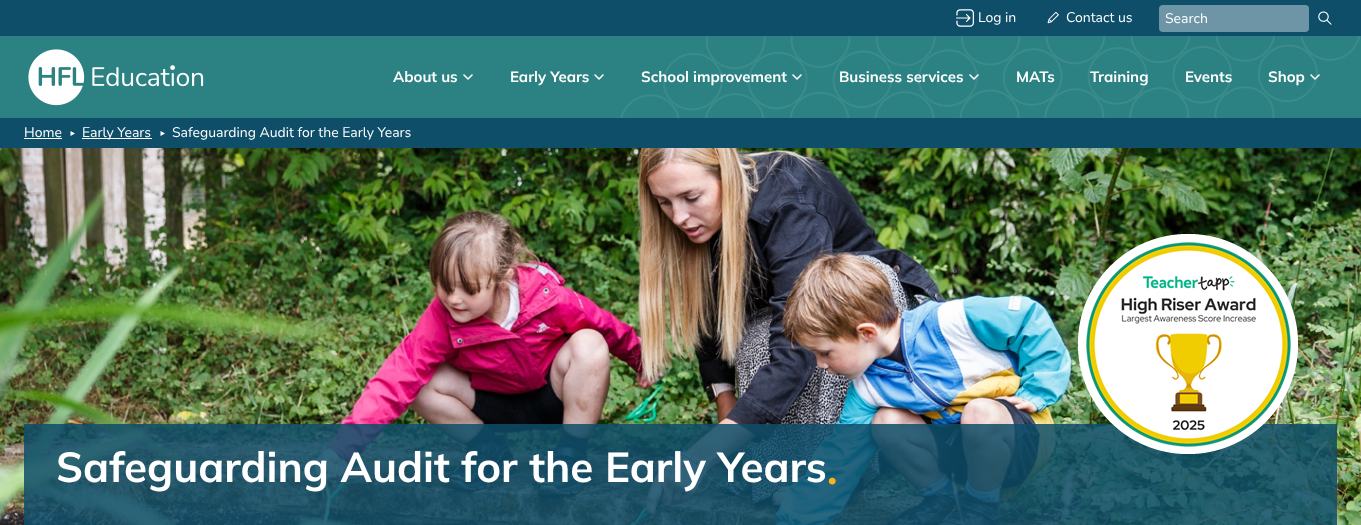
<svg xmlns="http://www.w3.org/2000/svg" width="1361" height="525">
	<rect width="100%" height="100%" fill="#FFFFFF" />
	<rect x="0" y="0" width="1361" height="148" fill="#0E4E69" />
	<image x="956" y="9" width="18" height="18" href="assets/img1.png" />
	<text x="978" y="22" font-family="Nunito Sans" font-size="14" fill="#FFFFFF">Log in</text>
	<image x="1047" y="12" width="12" height="12" href="assets/img2.png" />
	<text x="1066" y="22" font-family="Nunito Sans" font-size="14" fill="#FFFFFF">Contact us</text>
	<rect x="1159" y="5" width="150" height="27" rx="4" fill="#6E95A5" />
	<text x="1165" y="23" font-family="Nunito Sans" font-size="14" fill="#FFFFFF">Search</text>
	<image x="1318" y="11" width="14" height="14" href="assets/img3.png" />
	<rect x="0" y="36" width="1361" height="82" fill="#2C8282" />
	<image x="620" y="36" width="740" height="82" href="assets/img4.png" />
	<image x="28" y="49" width="176" height="57" href="assets/img5.png" />
	<text x="393" y="82" font-family="Mulish" font-size="15" font-weight="700" fill="#FFFFFF">About us</text>
	<image x="463" y="74" width="10" height="6" href="assets/img6.png" />
	<text x="510" y="82" font-family="Mulish" font-size="15" font-weight="700" fill="#FFFFFF">Early Years</text>
	<image x="594" y="74" width="10" height="6" href="assets/img6.png" />
	<text x="641" y="82" font-family="Mulish" font-size="15" font-weight="700" fill="#FFFFFF">School improvement</text>
	<image x="792" y="74" width="10" height="6" href="assets/img6.png" />
	<text x="839" y="82" font-family="Mulish" font-size="15" font-weight="700" fill="#FFFFFF">Business services</text>
	<image x="969" y="74" width="10" height="6" href="assets/img7.png" />
	<g font-family="Mulish" font-size="15" font-weight="700" fill="#FFFFFF">
		<text x="1016" y="82">MATs</text>
		<text x="1090" y="82">Training</text>
		<text x="1185" y="82">Events</text>
		<text x="1268" y="82">Shop</text>
	</g>
	<image x="1310" y="74" width="10" height="6" href="assets/img8.png" />
	<text x="24" y="137" font-family="Nunito Sans" font-size="14" fill="#FFFFFF">Home</text>
	<rect x="24" y="138" width="38" height="1" fill="#FFFFFF" />
	<image x="70" y="131" width="5" height="5" href="assets/img9.png" />
	<rect x="82" y="138" width="70" height="1" fill="#FFFFFF" />
	<text x="82" y="137" font-family="Nunito Sans" font-size="14" fill="#FFFFFF">Early Years</text>
	<image x="160" y="131" width="5" height="5" href="assets/img9.png" />
	<text x="172" y="137" font-family="Nunito Sans" font-size="14" fill="#FFFFFF">Safeguarding Audit for the Early Years</text>
	<image x="0" y="148" width="1361" height="377" href="assets/img11.png" />
	<rect x="24" y="424" width="1313" height="101" fill="#0E4E69" fill-opacity="0.85" />
	<image x="1078" y="234" width="220" height="220" href="assets/img10.png" />
	<text x="56" y="482" font-family="Mulish" font-size="42" font-weight="700" fill="#FFFFFF">Safeguarding Audit for the Early Years</text>
	<text x="827" y="484" font-family="Liberation Serif" font-size="42" font-weight="700" fill="#FAB619">.</text>
</svg>
